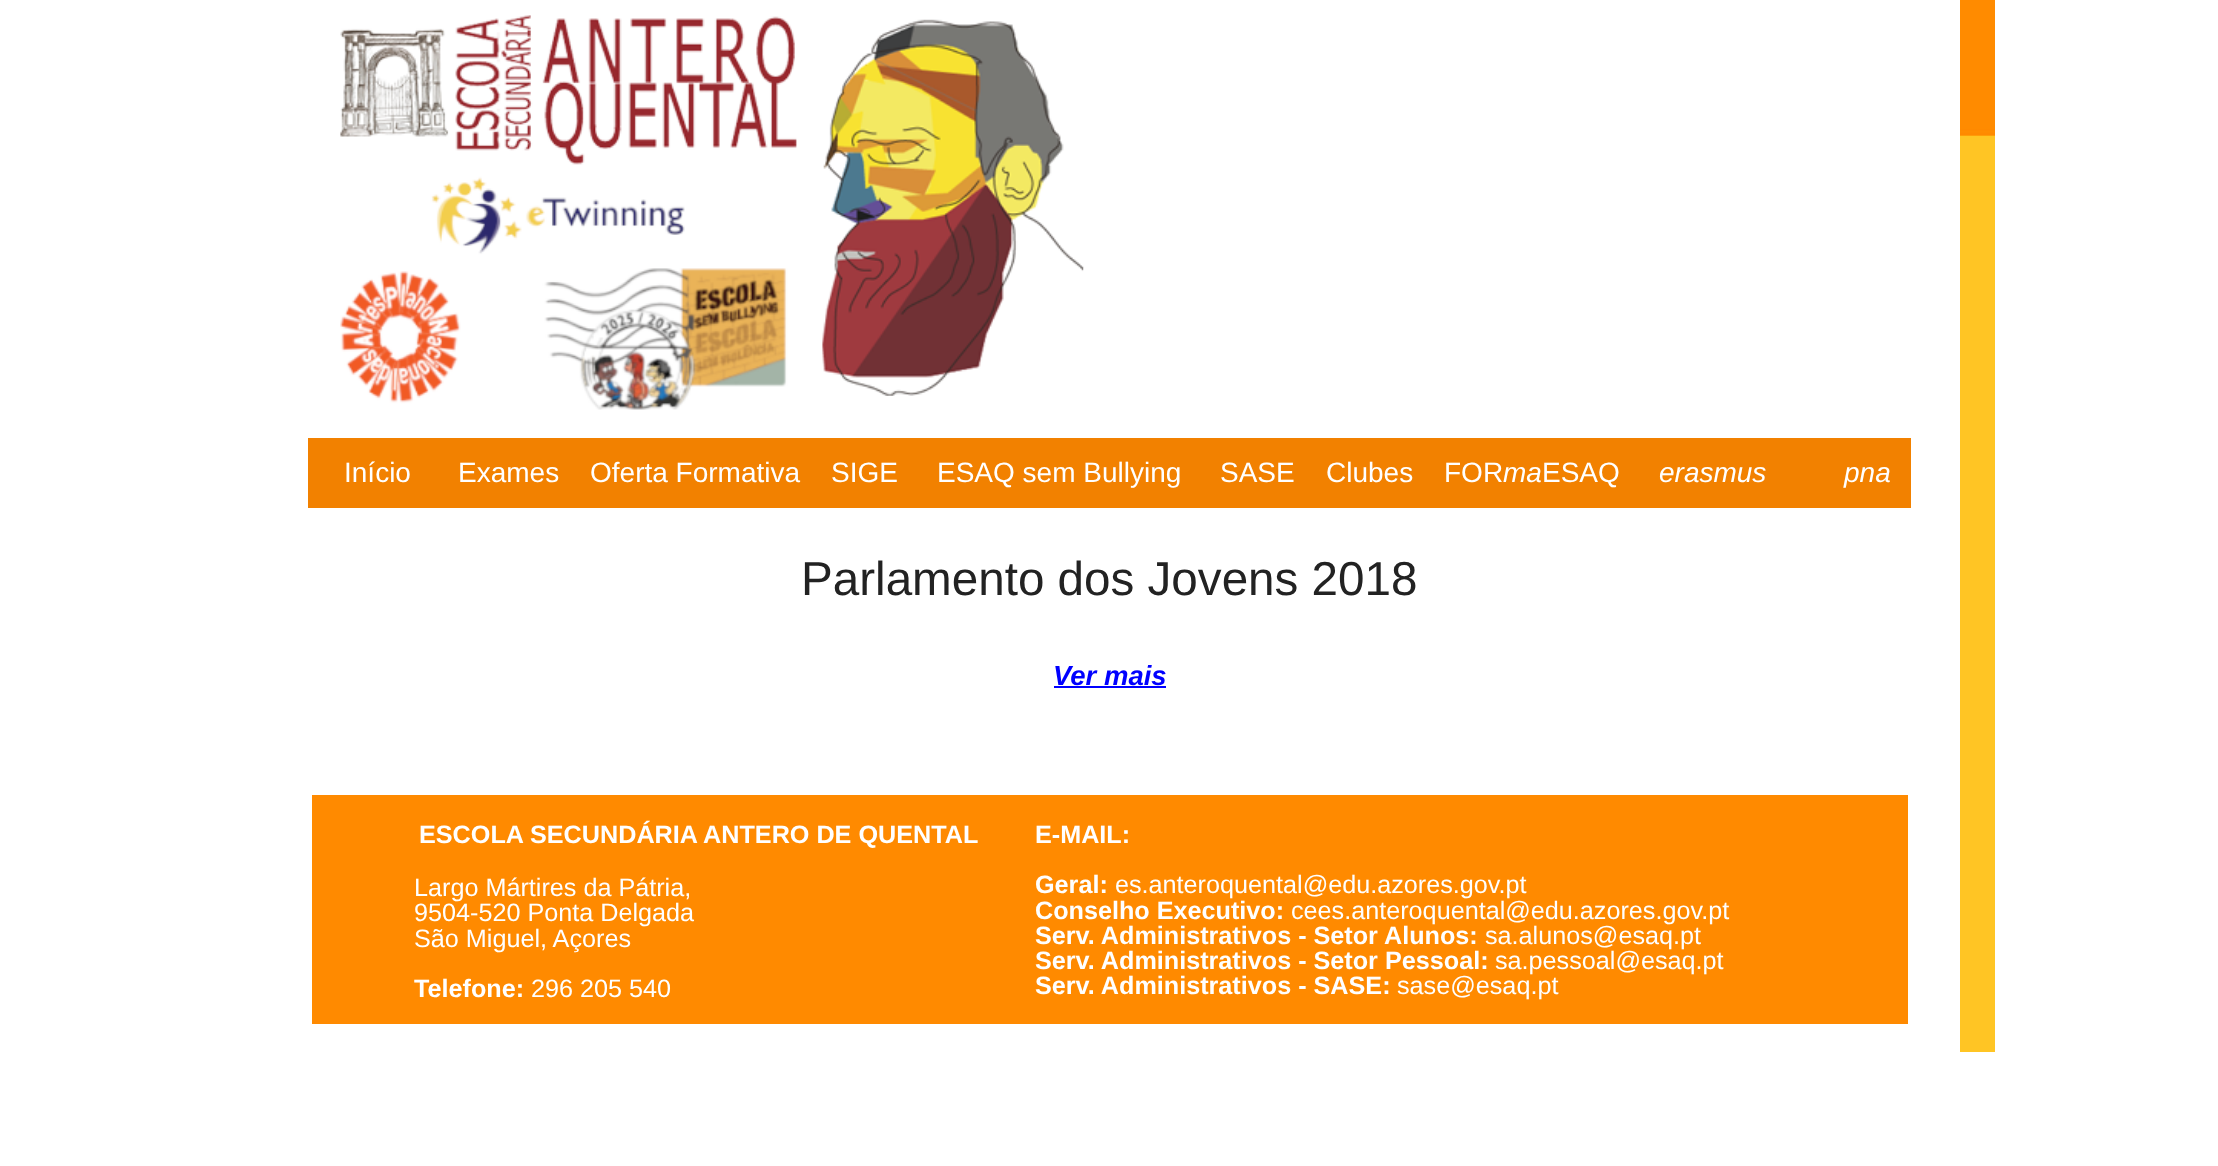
<svg xmlns="http://www.w3.org/2000/svg" width="2218" height="1166">
	<rect width="100%" height="100%" fill="#FFFFFF" />
	<image x="340" y="15" width="744" height="395" href="assets/img1.png" />
	<image x="1960" y="0" width="35" height="495" href="assets/img2.png" />
	<rect x="308" y="438" width="1603" height="70" fill="#F28100" />
	<g font-family="Liberation Sans" font-size="28" fill="#FFFFFF">
		<text x="344" y="482">Início</text>
		<text x="458" y="482">Exames</text>
		<text x="590" y="482">Oferta Formativa</text>
		<text x="831" y="482">SIGE</text>
		<text x="937" y="482">ESAQ sem Bullying</text>
		<text x="1220" y="482">SASE</text>
		<text x="1326" y="482">Clubes</text>
		<text x="1444" y="482">FOR</text>
	</g>
	<text x="1503" y="482" font-family="Liberation Sans" font-size="28" font-style="italic" fill="#FFFFFF">ma</text>
	<text x="1542" y="482" font-family="Liberation Sans" font-size="28" fill="#FFFFFF">ESAQ</text>
	<g font-family="Liberation Sans" font-size="28" font-style="italic" fill="#FFFFFF">
		<text x="1659" y="482">erasmus</text>
		<text x="1844" y="482">pna</text>
	</g>
	<text x="801" y="595" font-family="Liberation Sans" font-size="47.6" fill="#222222">Parlamento dos Jovens 2018</text>
	<text x="1053" y="685" font-family="Liberation Sans" font-size="27.5" font-weight="700" font-style="italic" fill="#0000FF">Ver mais</text>
	<rect x="1054" y="686" width="112" height="2" fill="#0000FF" />
	<rect x="1960" y="495" width="35" height="557" fill="#FFC524" />
	<rect x="312" y="795" width="1596" height="229" fill="#FF8A00" />
	<text x="419" y="843" font-family="Liberation Sans" font-size="25.2" font-weight="700" fill="#FFFFFF">ESCOLA SECUNDÁRIA ANTERO DE QUENTAL</text>
	<g font-family="Liberation Sans" font-size="25.2" fill="#FFFFFF">
		<text x="414" y="896">Largo Mártires da Pátria,</text>
		<text x="414" y="921">9504-520 Ponta Delgada</text>
		<text x="414" y="947">São Miguel, Açores</text>
	</g>
	<text x="414" y="997" font-family="Liberation Sans" font-size="25.2" font-weight="700" fill="#FFFFFF">Telefone:</text>
	<text x="531" y="997" font-family="Liberation Sans" font-size="25.2" fill="#FFFFFF">296 205 540</text>
	<g font-family="Liberation Sans" font-size="25.2" font-weight="700" fill="#FFFFFF">
		<text x="1035" y="843">E-MAIL:</text>
		<text x="1035" y="893">Geral:</text>
	</g>
	<text x="1115" y="893" font-family="Liberation Sans" font-size="25.2" fill="#FFFFFF">es.anteroquental@edu.azores.gov.pt</text>
	<text x="1035" y="919" font-family="Liberation Sans" font-size="25.2" font-weight="700" fill="#FFFFFF">Conselho Executivo:</text>
	<text x="1291" y="919" font-family="Liberation Sans" font-size="25.2" fill="#FFFFFF">cees.anteroquental@edu.azores.gov.pt</text>
	<text x="1035" y="944" font-family="Liberation Sans" font-size="25.2" font-weight="700" fill="#FFFFFF">Serv. Administrativos - Setor Alunos:</text>
	<text x="1485" y="944" font-family="Liberation Sans" font-size="25.2" fill="#FFFFFF">sa.alunos@esaq.pt</text>
	<text x="1035" y="969" font-family="Liberation Sans" font-size="25.2" font-weight="700" fill="#FFFFFF">Serv. Administrativos - Setor Pessoal:</text>
	<text x="1495" y="969" font-family="Liberation Sans" font-size="25.2" fill="#FFFFFF">sa.pessoal@esaq.pt</text>
	<text x="1035" y="994" font-family="Liberation Sans" font-size="25.2" font-weight="700" fill="#FFFFFF">Serv. Administrativos - SASE:</text>
	<text x="1397" y="994" font-family="Liberation Sans" font-size="25.2" fill="#FFFFFF">sase@esaq.pt</text>
</svg>
